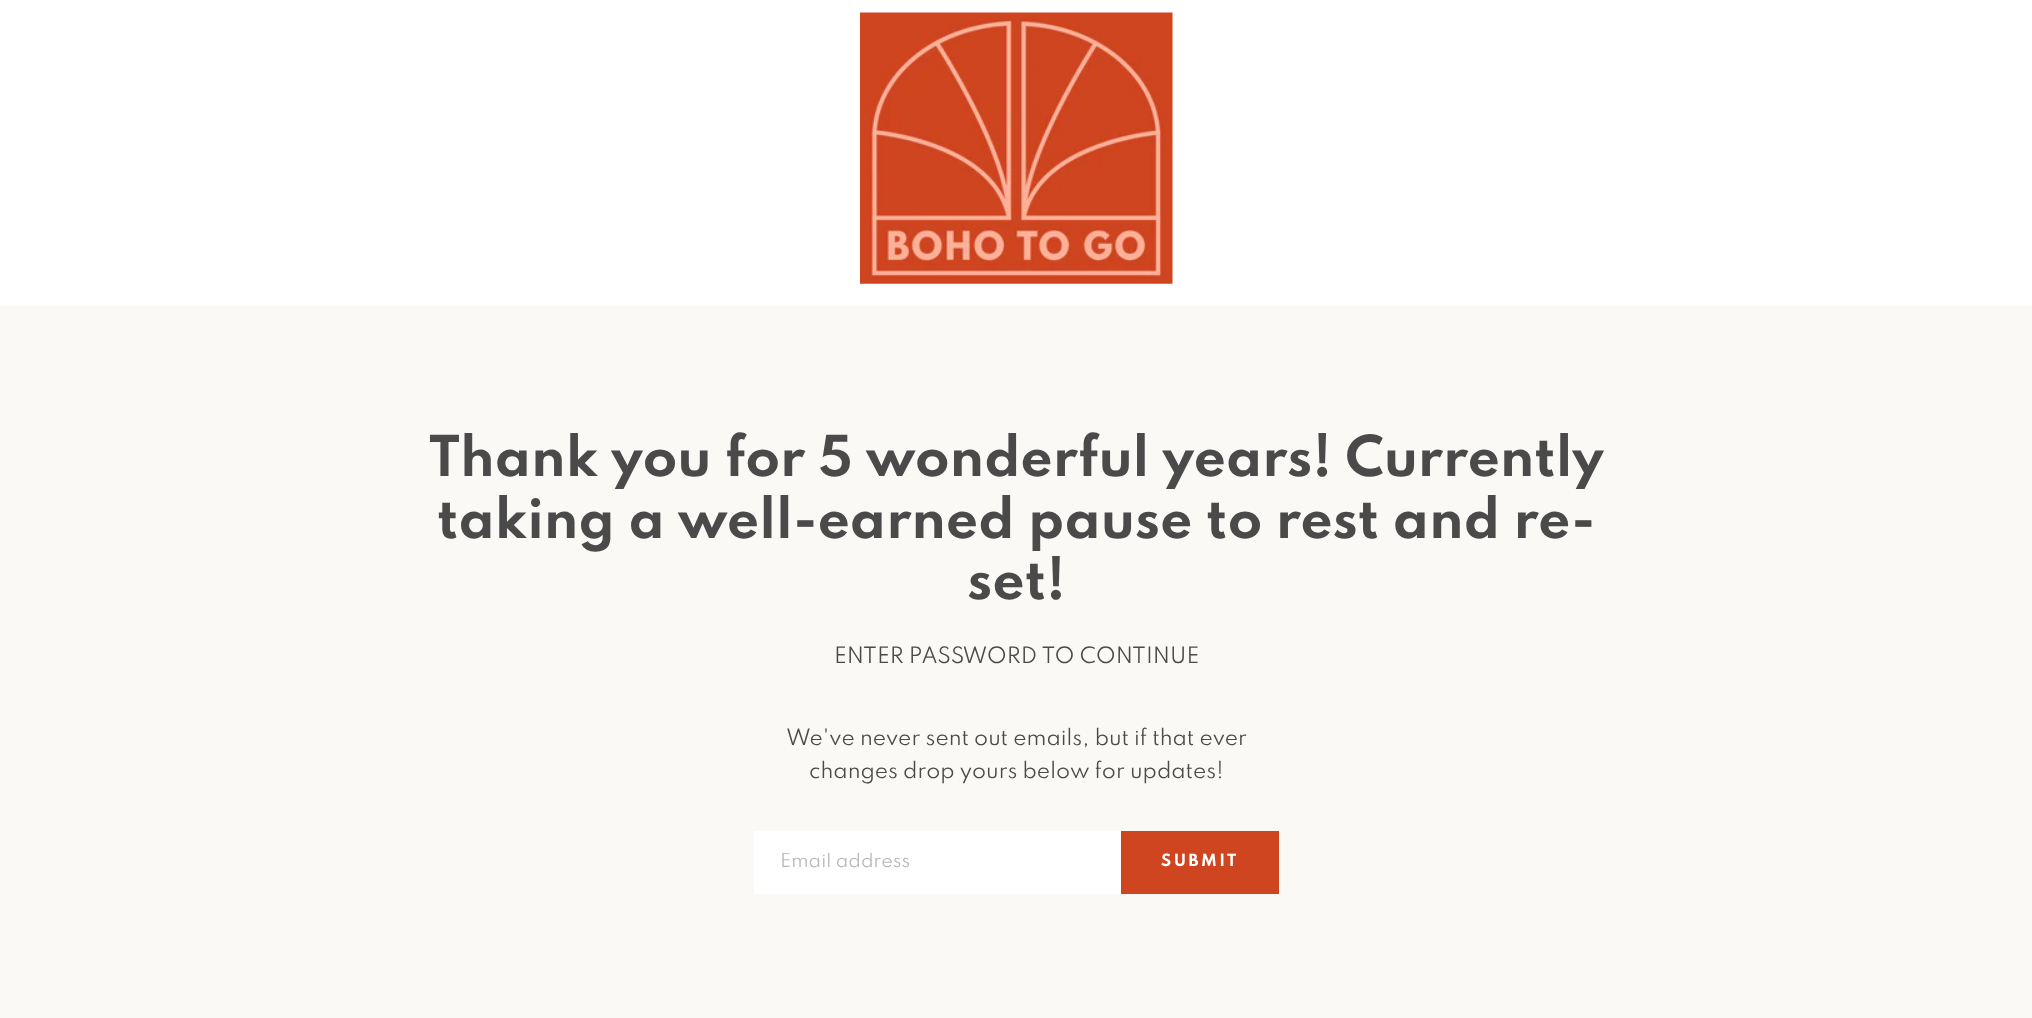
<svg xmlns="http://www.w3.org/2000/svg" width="2032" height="1018">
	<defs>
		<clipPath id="clip1"><rect x="780" y="853" width="315" height="21" /></clipPath>
	</defs>
	<rect width="100%" height="100%" fill="#FAF9F6" />
	<rect x="0" y="0" width="2032" height="306" fill="#FFFFFF" />
	<image x="860" y="12" width="313" height="272" href="assets/img1.png" />
	<g font-family="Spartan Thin" font-size="50" font-weight="700" fill="#4A4A4A">
		<text x="429" y="476">Thank you for 5 wonderful years! Currently</text>
		<text x="437" y="538">taking a well-earned pause to rest and re-</text>
		<text x="967" y="599">set!</text>
	</g>
	<g font-family="Spartan Thin" font-size="20" fill="#4A4A4A">
		<text x="834" y="663">ENTER PASSWORD TO CONTINUE</text>
		<text x="786" y="745">We've never sent out emails, but if that ever</text>
		<text x="809" y="778">changes drop yours below for updates!</text>
	</g>
	<rect x="754" y="831" width="367" height="63" fill="#FFFFFF" />
	<g clip-path="url(#clip1)">
		<text x="780" y="867" font-family="Spartan Thin" font-size="17.5" fill="#B7B7B7">Email address</text>
	</g>
	<rect x="1121" y="831" width="158" height="63" fill="#CE4520" />
	<text x="1161" y="866" font-family="Spartan Thin" font-size="15" font-weight="700" letter-spacing="2.5" fill="#FFFFFF">SUBMIT</text>
</svg>
